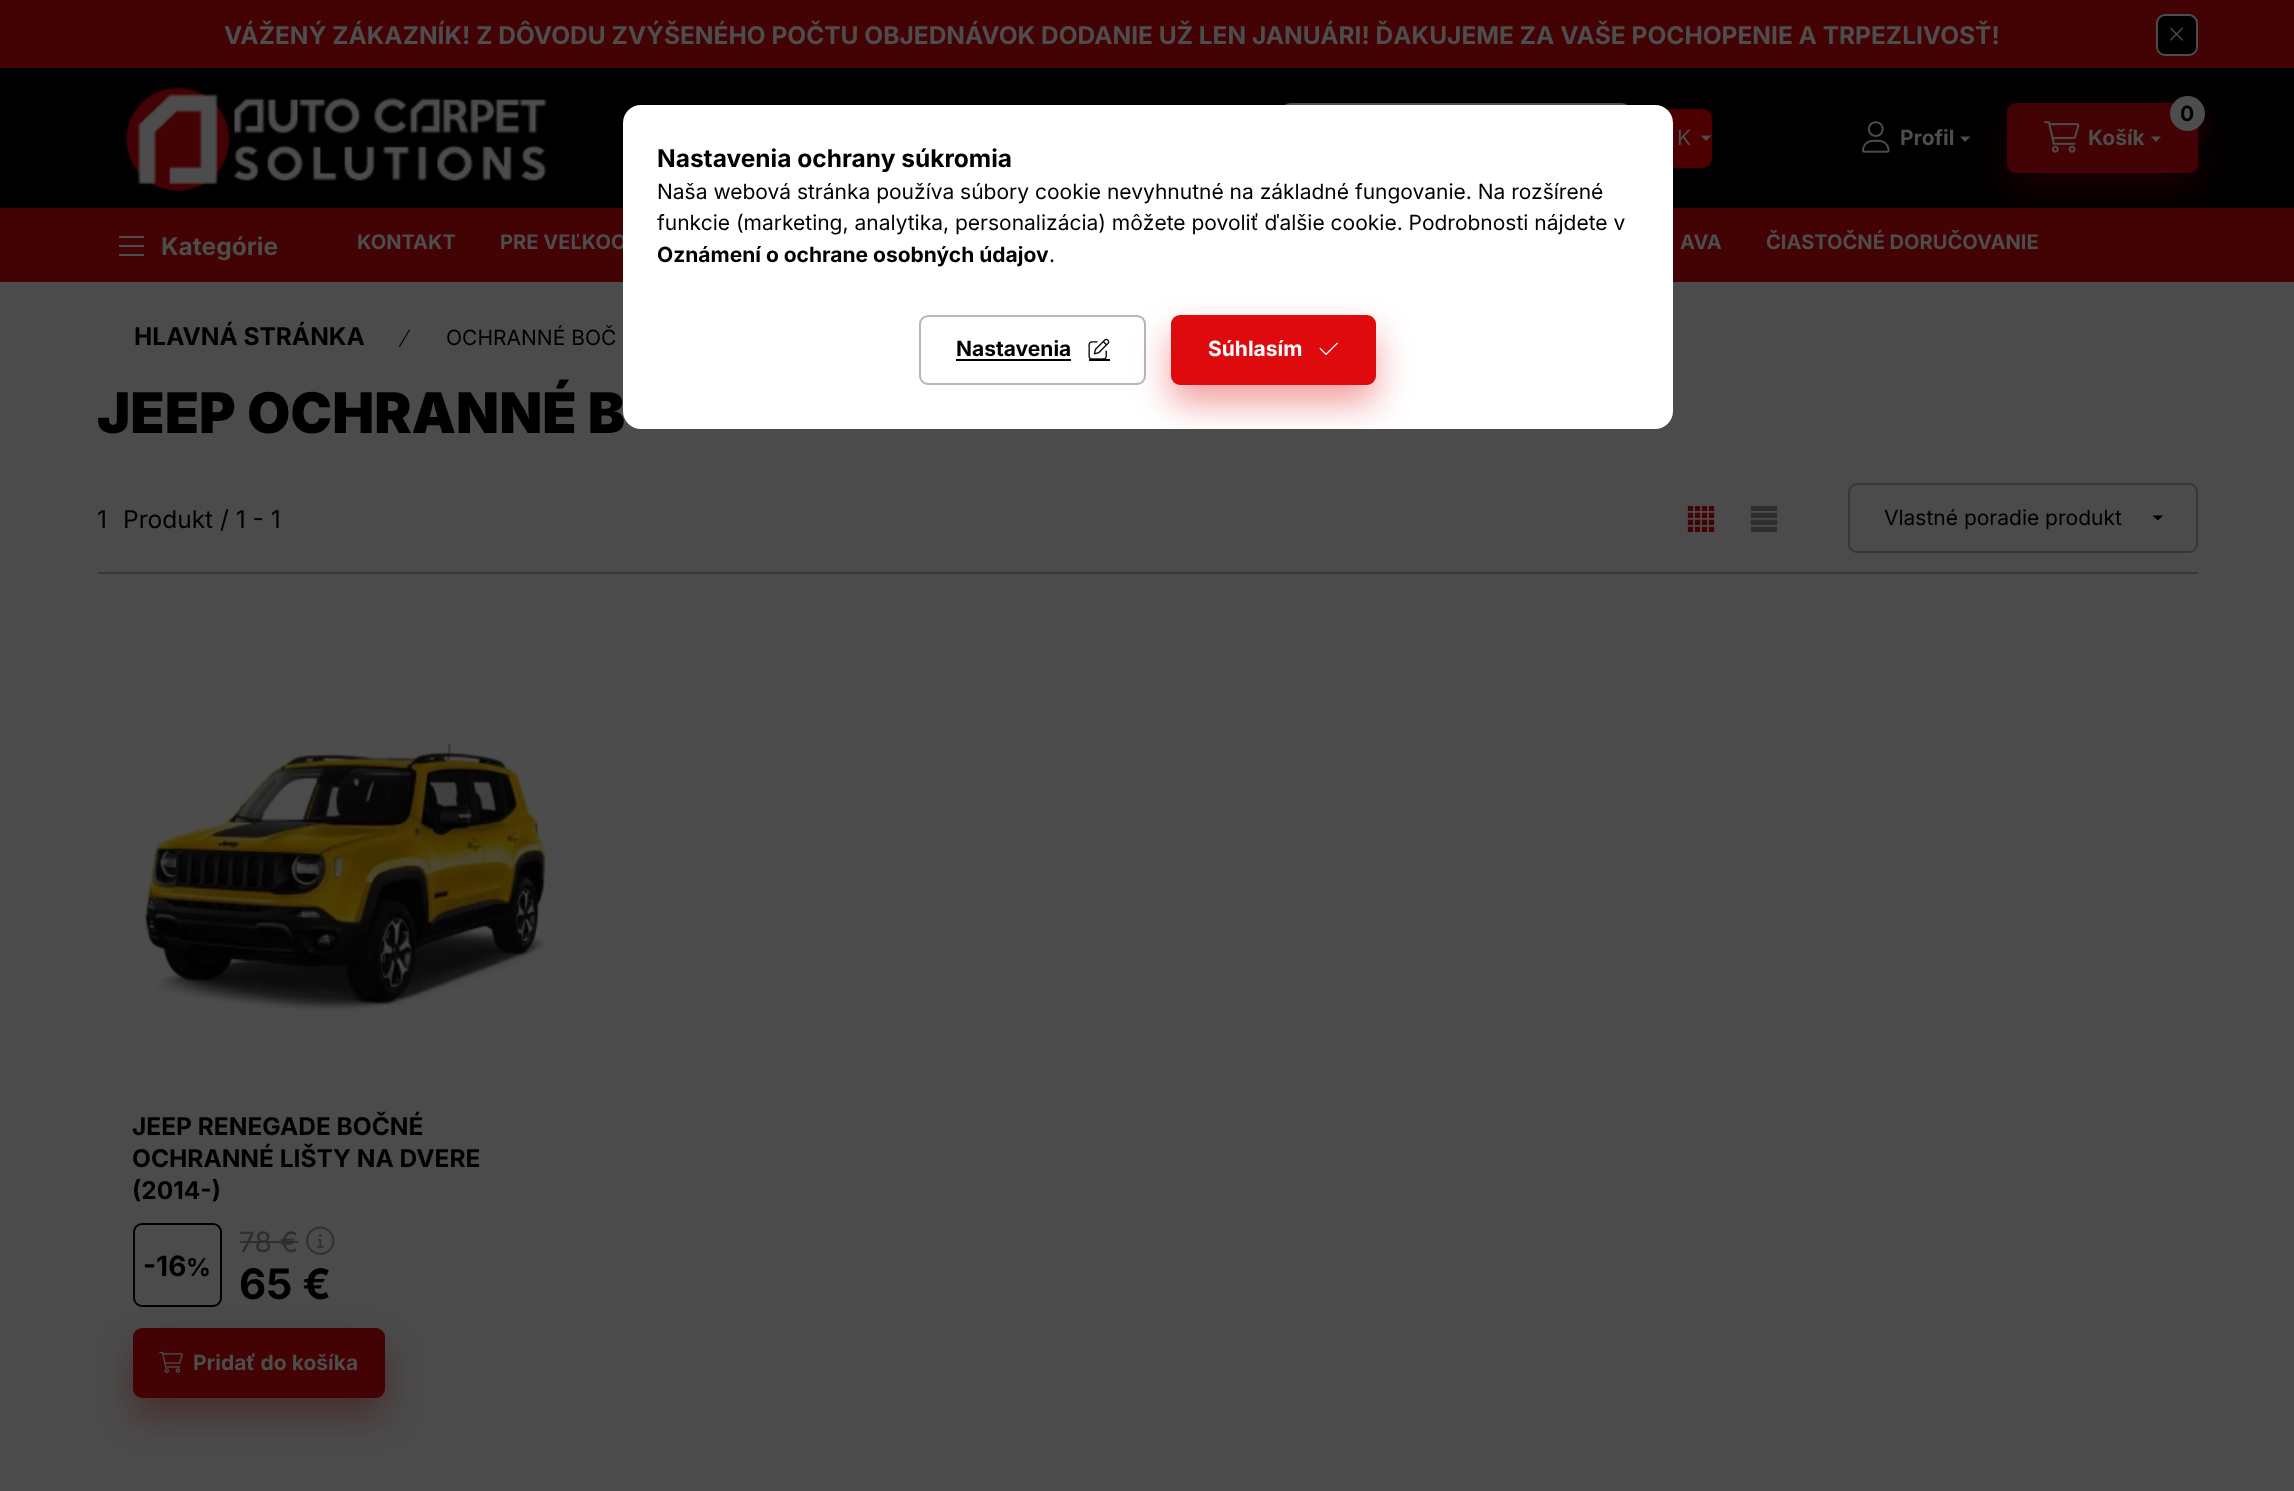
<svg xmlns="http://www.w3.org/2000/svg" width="2294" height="1491">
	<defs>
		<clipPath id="clip1"><rect x="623" y="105" width="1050" height="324" rx="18" /></clipPath>
	</defs>
	<rect width="100%" height="100%" fill="#4B4B4B" />
	<rect x="0" y="68" width="2294" height="140" fill="#000000" />
	<rect x="0" y="208" width="2294" height="74" fill="#430304" />
	<rect x="2007" y="121" width="191" height="70" rx="9" fill="#430304" fill-opacity="0.4" filter="blur(17.5px)" />
	<rect x="0" y="0" width="2294" height="68" fill="#430304" />
	<text x="224" y="44" font-family="Inter" font-size="24.5" font-weight="700" fill="#4D4D4D">VÁŽENÝ ZÁKAZNÍK! Z DÔVODU ZVÝŠENÉHO POČTU OBJEDNÁVOK DODANIE UŽ LEN JANUÁRI! ĎAKUJEME ZA VAŠE POCHOPENIE A TRPEZLIVOSŤ!</text>
	<rect x="2157" y="15" width="40" height="40" rx="8" fill="#000000" stroke="#4D4D4D" stroke-width="2" />
	<image x="2170" y="27" width="14" height="14" href="assets/img1.png" />
	<image x="125" y="87" width="422" height="104" href="assets/img2.png" />
	<rect x="1281" y="103" width="350" height="70" rx="9" fill="#4D4D4D" />
	<rect x="1649" y="109" width="63" height="59" rx="9" fill="#4D0000" />
	<text x="1677" y="145" font-family="Inter" font-size="21" fill="#4D4D4D">K</text>
	<path d="M1701 135.5H1711.5L1706 141Z" fill="#4D4D4D" />
	<image x="1862" y="121" width="28" height="32" href="assets/img3.png" />
	<text x="1900" y="145" font-family="Inter" font-size="21" font-weight="700" fill="#4D4D4D">Profil</text>
	<path d="M1960 136.5H1970.5L1965 142Z" fill="#4D4D4D" />
	<rect x="2007" y="103" width="191" height="70" rx="9" fill="#430304" />
	<rect x="2170" y="105" width="35" height="35" rx="17.5" fill="#430304" fill-opacity="0.4" filter="blur(9px)" />
	<circle cx="2187.5" cy="113.5" r="17.5" fill="#4D4D4D" />
	<text x="2180" y="121" font-family="Inter" font-size="21" font-weight="700" fill="#000000">0</text>
	<image x="2044" y="121" width="36" height="32" href="assets/img4.png" />
	<text x="2088" y="145" font-family="Inter" font-size="21" font-weight="700" fill="#4D4D4D">Košík</text>
	<path d="M2151 136.5H2161L2156 142Z" fill="#4D4D4D" />
	<rect x="119" y="236" width="25" height="2" fill="#4D4D4D" />
	<rect x="119" y="245" width="25" height="2" fill="#4D4D4D" />
	<rect x="119" y="254" width="25" height="2" fill="#4D4D4D" />
	<text x="161" y="255" font-family="Inter" font-size="24.5" font-weight="700" fill="#4D4D4D">Kategórie</text>
	<g font-family="Inter" font-size="20.1" font-weight="700" fill="#4D4D4D">
		<text x="357" y="249">KONTAKT</text>
		<text x="500" y="249">PRE VEĽKOO</text>
		<text x="1680" y="249">AVA</text>
		<text x="1766" y="249">ČIASTOČNÉ DORUČOVANIE</text>
	</g>
	<text x="134" y="345" font-family="Inter" font-size="24.5" font-weight="700" fill="#000000">HLAVNÁ STRÁNKA</text>
	<image x="399" y="329" width="11" height="18" href="assets/img5.png" />
	<text x="446" y="345" font-family="Inter" font-size="21" fill="#000000">OCHRANNÉ BOČ</text>
	<text x="97" y="433" font-family="Inter" font-size="56" font-weight="900" fill="#000000">JEEP OCHRANNÉ B</text>
	<rect x="98" y="572" width="2100" height="2" fill="#373737" />
	<g font-family="Inter" font-size="24.5" fill="#000000">
		<text x="97" y="528">1</text>
		<text x="123" y="528">Produkt / 1 - 1</text>
	</g>
	<image x="1687" y="506" width="28" height="26" href="assets/img6.png" />
	<image x="1750" y="506" width="28" height="26" href="assets/img7.png" />
	<rect x="1849" y="484" width="348" height="68" rx="8" fill="none" stroke="#373737" stroke-width="2" />
	<text x="1884" y="525" font-family="Inter" font-size="21" fill="#000000">Vlastné poradie produkt</text>
	<path d="M2152.5 515.5H2163L2158 520.5Z" fill="#000000" />
	<image x="145" y="739" width="405" height="273" href="assets/img8.png" />
	<g font-family="Inter" font-size="24.5" font-weight="700" fill="#000000">
		<text x="132" y="1135">JEEP RENEGADE BOČNÉ</text>
		<text x="132" y="1167">OCHRANNÉ LIŠTY NA DVERE</text>
		<text x="132" y="1199">(2014-)</text>
	</g>
	<rect x="133" y="1346" width="252" height="70" rx="9" fill="#430304" fill-opacity="0.4" filter="blur(17.5px)" />
	<rect x="134" y="1224" width="87" height="82" rx="8" fill="none" stroke="#000000" stroke-width="2" />
	<text x="143" y="1276" font-family="Inter" font-size="28" font-weight="700" fill="#000000">-16</text>
	<text x="186" y="1276" font-family="Inter" font-size="24.5" font-weight="700" fill="#000000">%</text>
	<text x="239" y="1252" font-family="Inter" font-size="28" fill="#2E2E2E">78 €</text>
	<rect x="240" y="1241" width="58" height="2" fill="#2E2E2E" />
	<image x="306" y="1226" width="29" height="29" href="assets/img9.png" />
	<text x="239" y="1299" font-family="Inter" font-size="42" font-weight="700" fill="#000000">65 €</text>
	<rect x="133" y="1328" width="252" height="70" rx="9" fill="#430304" />
	<image x="159" y="1351" width="24" height="22" href="assets/img10.png" />
	<text x="193" y="1370" font-family="Inter" font-size="21" font-weight="700" fill="#4D4D4D">Pridať do košíka</text>
	<rect x="623" y="105" width="1050" height="324" rx="18" fill="#FFFFFF" />
	<text x="657" y="167" font-family="Inter" font-size="24.5" font-weight="700" fill="#000000">Nastavenia ochrany súkromia</text>
	<g font-family="Inter" font-size="21" fill="#000000">
		<text x="657" y="199">Naša webová stránka používa súbory cookie nevyhnutné na základné fungovanie. Na rozšírené</text>
		<text x="657" y="230">funkcie (marketing, analytika, personalizácia) môžete povoliť ďalšie cookie. Podrobnosti nájdete v</text>
	</g>
	<text x="657" y="262" font-family="Inter" font-size="21" font-weight="700" fill="#000000">Oznámení o ochrane osobných údajov</text>
	<text x="1049" y="262" font-family="Inter" font-size="21" fill="#000000">.</text>
	<rect x="920" y="316" width="225" height="68" rx="8" fill="none" stroke="#B7B7B7" stroke-width="2" />
	<text x="956" y="356" font-family="Inter" font-size="21" font-weight="700" fill="#000000">Nastavenia</text>
	<rect x="956" y="359" width="115" height="2" fill="#000000" />
	<image x="1088" y="338" width="22" height="21" href="assets/img11.png" />
	<rect x="1089" y="359" width="21" height="2" fill="#000000" />
	<g clip-path="url(#clip1)">
		<rect x="1171" y="333" width="205" height="70" rx="9" fill="#DF0A0D" fill-opacity="0.4" filter="blur(17.5px)" />
	</g>
	<rect x="1172" y="316" width="203" height="68" rx="8" fill="#DF0A0D" stroke="#DF0A0D" stroke-width="2" />
	<text x="1208" y="356" font-family="Inter" font-size="21" font-weight="700" fill="#FFFFFF">Súhlasím</text>
	<image x="1319" y="342" width="19" height="13" href="assets/img12.png" />
</svg>
